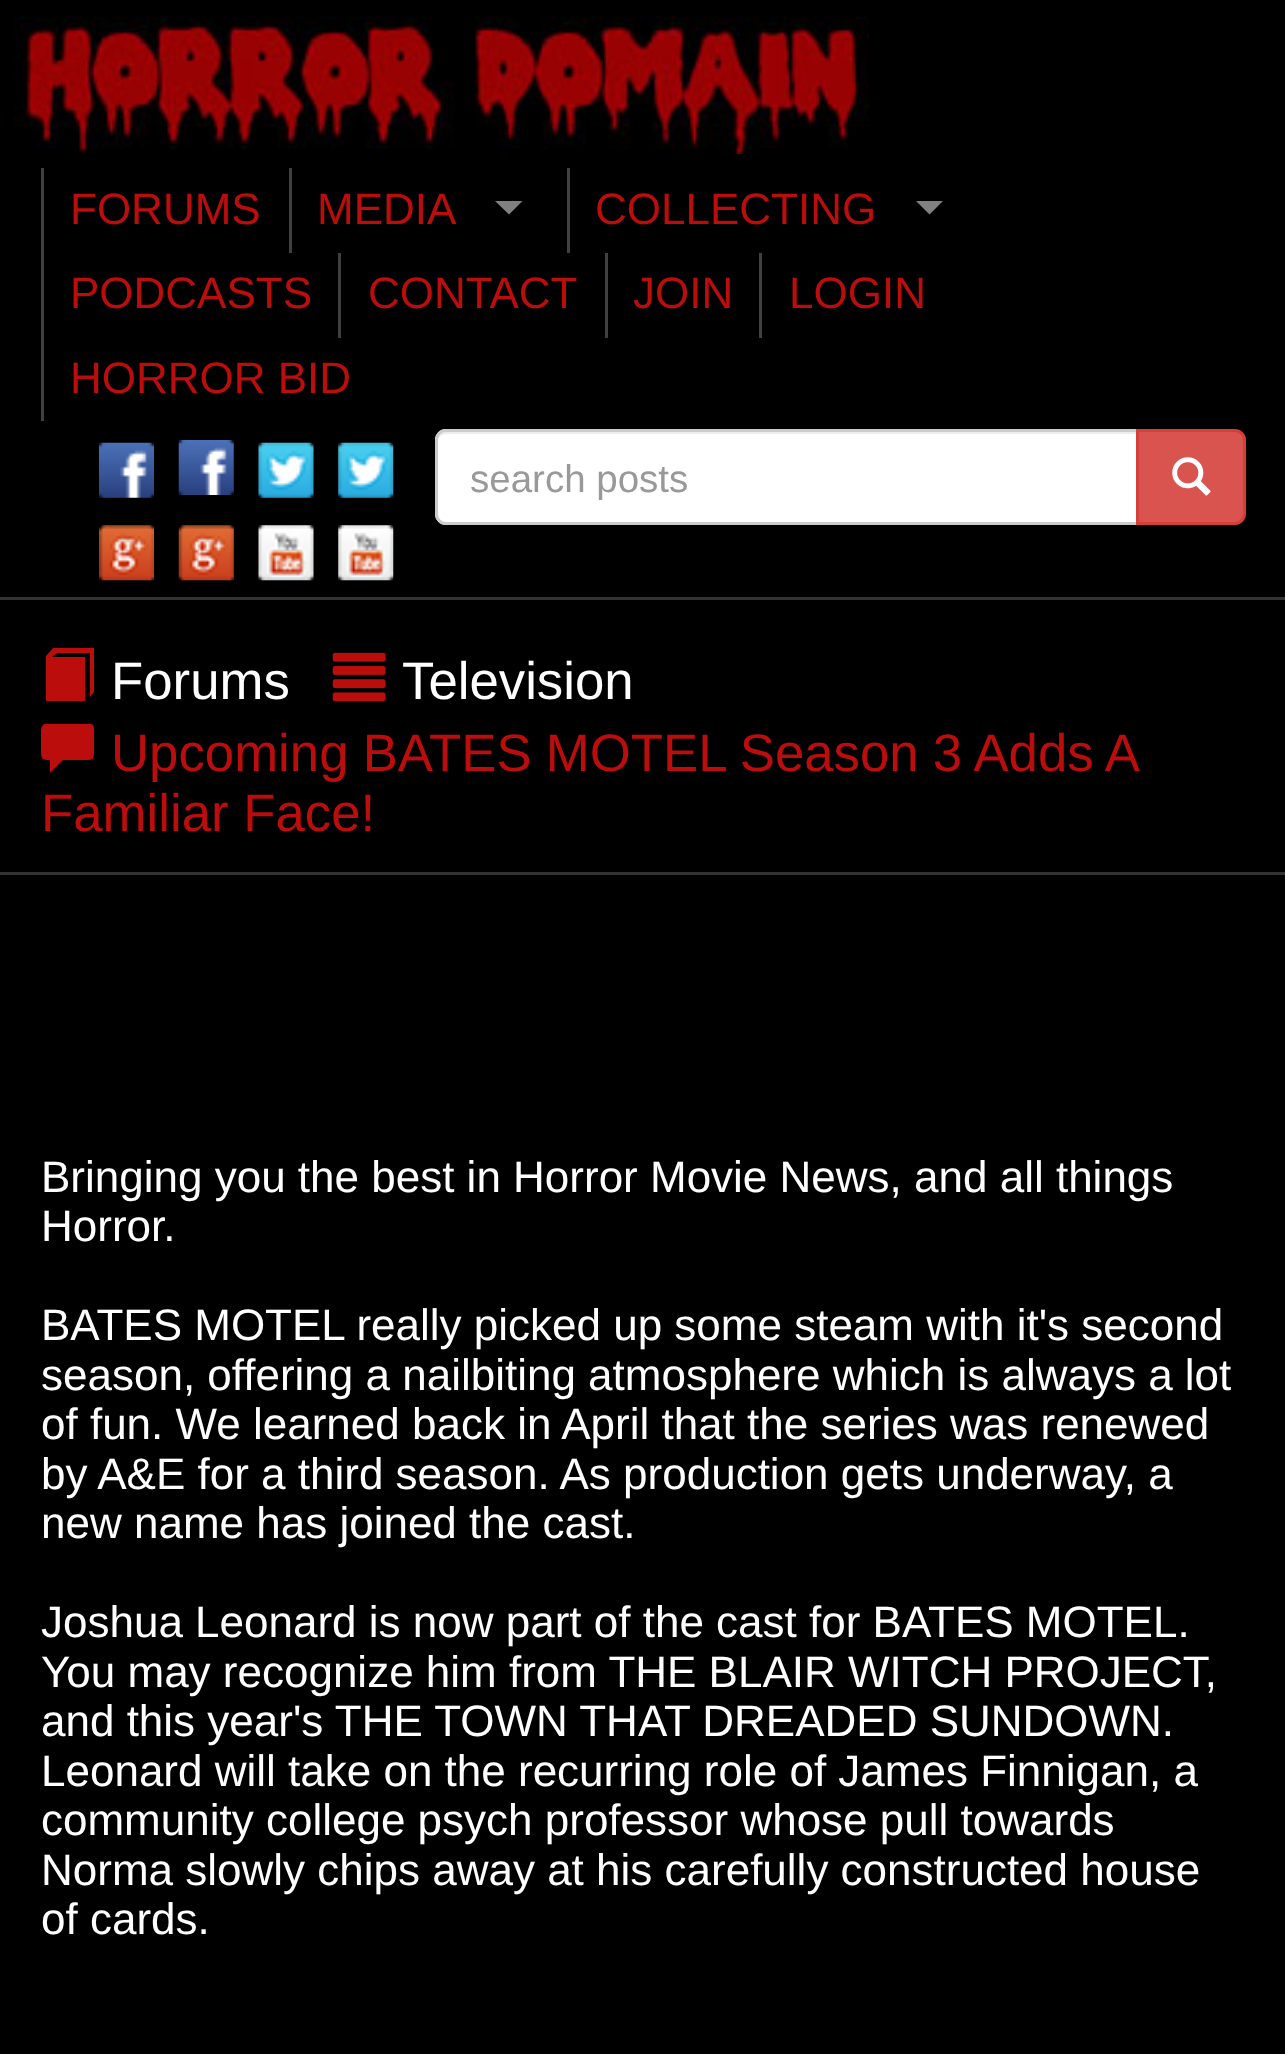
<svg xmlns="http://www.w3.org/2000/svg" width="1285" height="2054">
	<rect width="100%" height="100%" fill="#000000" />
	<rect x="0" y="597" width="1285" height="3" fill="#333333" />
	<image x="14" y="16" width="855" height="138" href="assets/img1.png" />
	<rect x="41" y="168" width="3" height="253" fill="#404040" />
	<text x="70" y="224" font-family="Liberation Sans" font-size="44" fill="#BC0D0D">FORUMS</text>
	<rect x="289" y="168" width="3" height="85" fill="#404040" />
	<text x="317" y="224" font-family="Liberation Sans" font-size="44" fill="#BC0D0D">MEDIA</text>
	<path d="M495 201H522.5L509 214.5Z" fill="#808080" />
	<rect x="567" y="168" width="3" height="85" fill="#404040" />
	<text x="595" y="224" font-family="Liberation Sans" font-size="44" fill="#BC0D0D">COLLECTING</text>
	<path d="M916 201H943L929.5 214.5Z" fill="#808080" />
	<text x="70" y="308" font-family="Liberation Sans" font-size="44" fill="#BC0D0D">PODCASTS</text>
	<rect x="338" y="253" width="3" height="85" fill="#404040" />
	<text x="368" y="308" font-family="Liberation Sans" font-size="44" fill="#BC0D0D">CONTACT</text>
	<rect x="605" y="253" width="3" height="85" fill="#404040" />
	<text x="633" y="308" font-family="Liberation Sans" font-size="44" fill="#BC0D0D">JOIN</text>
	<rect x="759" y="253" width="3" height="85" fill="#404040" />
	<g font-family="Liberation Sans" font-size="44" fill="#BC0D0D">
		<text x="789" y="308">LOGIN</text>
		<text x="70" y="393">HORROR BID</text>
	</g>
	<image x="99" y="442" width="55" height="56" href="assets/img2.png" />
	<image x="178" y="440" width="56" height="55" href="assets/img3.png" />
	<image x="258" y="442" width="56" height="56" href="assets/img4.png" />
	<image x="338" y="442" width="56" height="56" href="assets/img5.png" />
	<rect x="435" y="429" width="770" height="96" rx="11" fill="#FFFFFF" />
	<path d="M446 434H1194C1198 434 1202 438 1202 443V440C1202 436 1198 432 1194 432H445C441 432 437 436 437 440V443C437 438 441 434 446 434Z" fill="#ECECEC" />
	<rect x="436.5" y="430.5" width="767" height="93" rx="9.5" fill="none" stroke="#CCCCCC" stroke-width="3" />
	<text x="470" y="492" font-family="Liberation Sans" font-size="38.5" fill="#999999">search posts</text>
	<path d="M1137.5 430.5H1235C1240 430.5 1244.5 435 1244.5 440V514C1244.5 519 1240 523.5 1235 523.5H1137.5Z" fill="#D9534F" stroke="#D43F3A" stroke-width="3" />
	<image x="1172" y="457" width="39" height="39" href="assets/img6.png" />
	<image x="99" y="525" width="55" height="56" href="assets/img7.png" />
	<image x="178" y="525" width="56" height="56" href="assets/img8.png" />
	<image x="258" y="525" width="56" height="56" href="assets/img9.png" />
	<image x="338" y="525" width="56" height="56" href="assets/img10.png" />
	<path d="M94 648V692L90 697V653H57L52 657H85V701H46V656L53 648Z" fill="#BC0D0D" />
	<text x="111" y="699" font-family="Liberation Sans" font-size="52.75" fill="#FFFFFF">Forums</text>
	<image x="332" y="652" width="54" height="50" href="assets/img11.png" />
	<text x="402" y="699" font-family="Liberation Sans" font-size="52.75" fill="#FFFFFF">Television</text>
	<path d="M46 724H91C95 725 94 730 94 733V751C94 759 94 760 85 760H63L50 773V760C42 760 41 759 41 751V733C41 730 41 724 46 724Z" fill="#BC0D0D" />
	<g font-family="Liberation Sans" font-size="52.75" fill="#BC0D0D">
		<text x="111" y="771" word-spacing="-0.5">Upcoming BATES MOTEL Season 3 Adds A</text>
		<text x="41" y="831">Familiar Face!</text>
	</g>
	<rect x="0" y="872" width="1285" height="3" fill="#333333" />
	<g font-family="Liberation Sans" font-size="44" fill="#FFFFFF">
		<text x="41" y="1192">Bringing you the best in Horror Movie News, and all things</text>
		<text x="41" y="1241">Horror.</text>
		<text x="41" y="1340">BATES MOTEL really picked up some steam with it's second</text>
		<text x="41" y="1390">season, offering a nailbiting atmosphere which is always a lot</text>
		<text x="41" y="1439">of fun. We learned back in April that the series was renewed</text>
		<text x="41" y="1489">by A&amp;E for a third season. As production gets underway, a</text>
		<text x="41" y="1538">new name has joined the cast.</text>
		<text x="41" y="1637">Joshua Leonard is now part of the cast for BATES MOTEL.</text>
		<text x="41" y="1687">You may recognize him from THE BLAIR WITCH PROJECT,</text>
		<text x="41" y="1736">and this year's THE TOWN THAT DREADED SUNDOWN.</text>
		<text x="41" y="1786">Leonard will take on the recurring role of James Finnigan, a</text>
		<text x="41" y="1835">community college psych professor whose pull towards</text>
		<text x="41" y="1885">Norma slowly chips away at his carefully constructed house</text>
		<text x="41" y="1934">of cards.</text>
	</g>
</svg>
